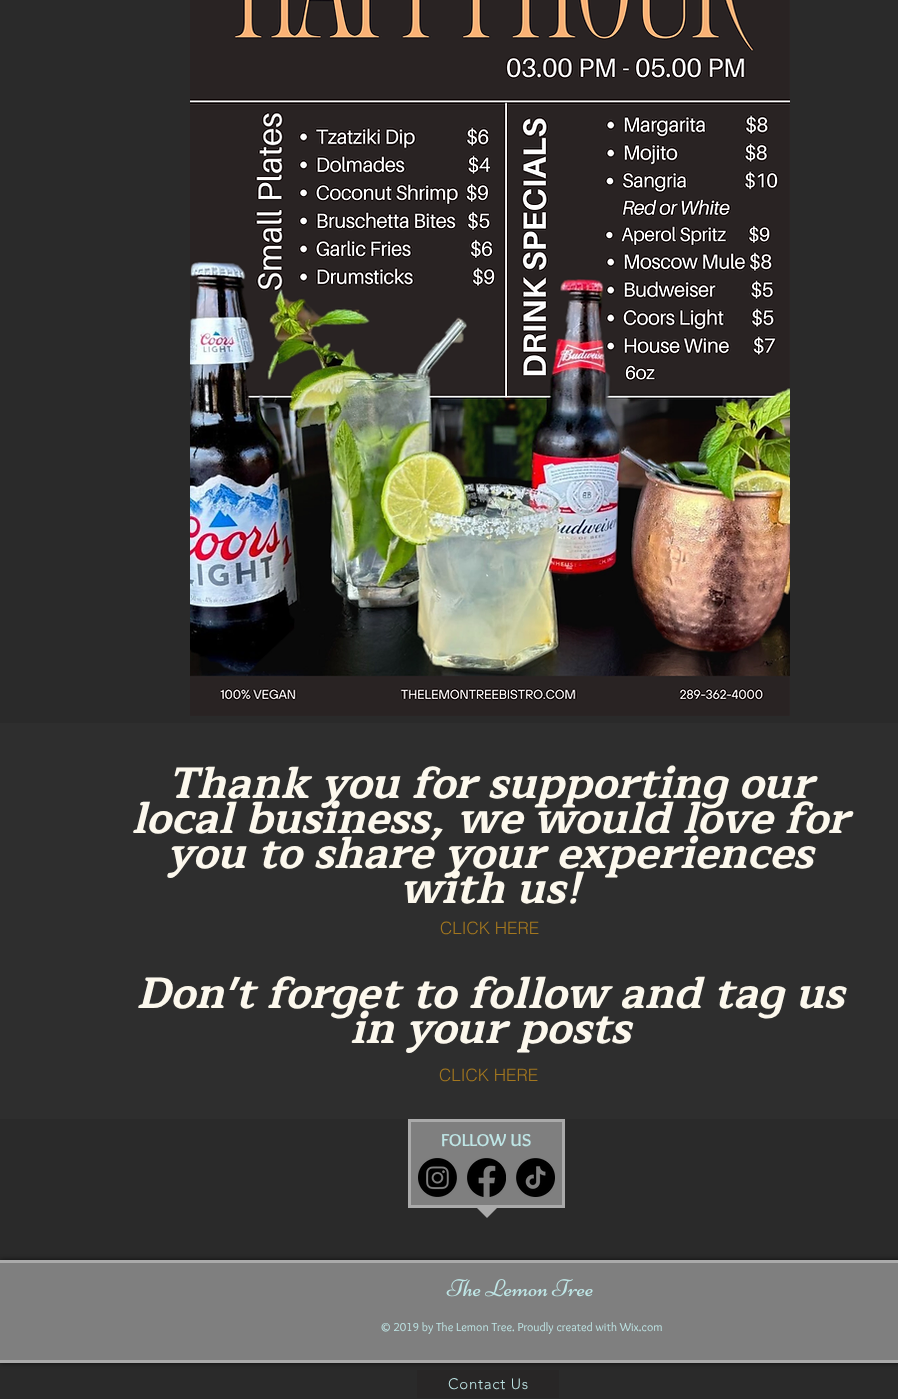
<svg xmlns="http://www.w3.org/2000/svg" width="898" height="1399">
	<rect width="100%" height="100%" fill="#2A2A2A" />
	<image x="190" y="0" width="600" height="716" href="assets/img1.png" />
	<rect x="0" y="723" width="898" height="396" fill="#2E2E2E" />
	<g font-family="Maitree" font-size="44" font-weight="700" font-style="italic" fill="#FCF8ED">
		<text x="168" y="798">Thank you for supporting our</text>
		<text x="131" y="833">local business, we would love for</text>
		<text x="167" y="868">you to share your experiences</text>
		<text x="400" y="903">with us!</text>
		<text x="136" y="1008">Don't forget to follow and tag us</text>
		<text x="350" y="1043">in your posts</text>
	</g>
	<g font-family="helvetica" font-size="17" font-weight="300" fill="#A3771F">
		<text x="440" y="934">CLICK HERE</text>
		<text x="439" y="1081">CLICK HERE</text>
	</g>
	<rect x="409.5" y="1120.5" width="154" height="86" fill="#7F7F7F" stroke="#AAAAAA" stroke-width="3" />
	<text x="441" y="1146" font-family="Overlock" font-size="18" font-weight="700" fill="#BEE5E5">FOLLOW US</text>
	<image x="418" y="1158" width="39" height="39" href="assets/img2.png" />
	<image x="467" y="1158" width="39" height="39" href="assets/img3.png" />
	<image x="516" y="1158" width="39" height="39" href="assets/img4.png" />
	<path d="M477 1208H497L487 1218Z" fill="#AAAAAA" />
	<rect x="0" y="1260" width="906" height="103" fill="#000000" fill-opacity="0.7" filter="blur(2.5px)" />
	<rect x="0" y="1263" width="898" height="97" fill="#7F7F7F" />
	<rect x="0" y="1260" width="898" height="3" fill="#AAAAAA" />
	<rect x="0" y="1360" width="898" height="3" fill="#AAAAAA" />
	<image x="446" y="1279" width="147" height="18" href="assets/img5.png" />
	<text x="380" y="1331" font-family="Overlock" font-size="12" fill="#BEE5E5">© 2019 by The Lemon Tree. Proudly created with Wix.com</text>
	<rect x="417" y="1370" width="142" height="28" fill="#282626" />
	<text x="448" y="1389" font-family="'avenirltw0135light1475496'" font-size="15" font-weight="300" letter-spacing="0.75" fill="#BEE5E5">Contact Us</text>
</svg>
